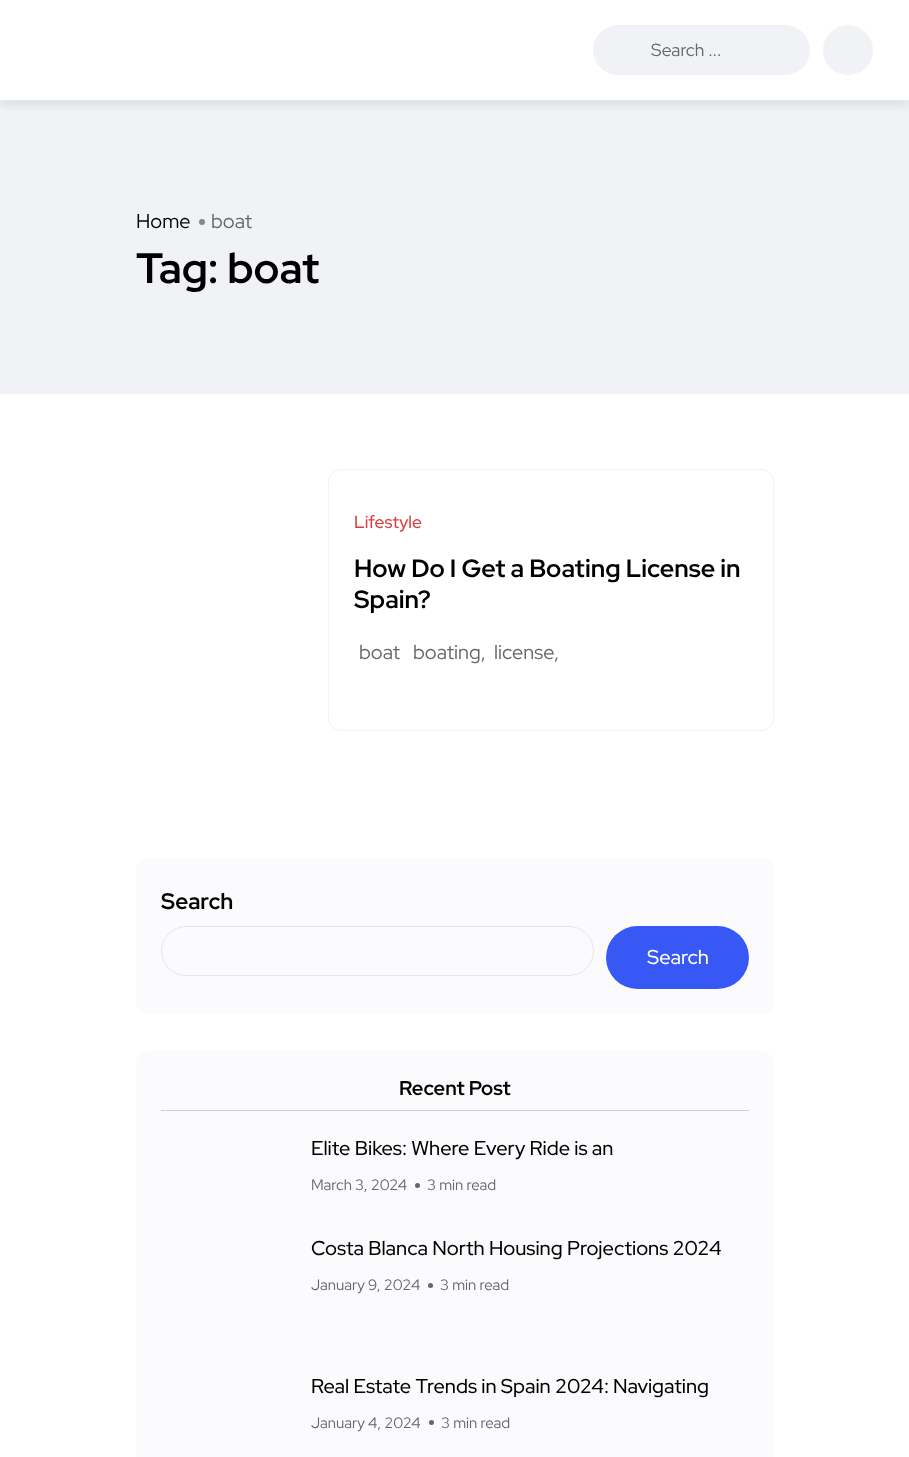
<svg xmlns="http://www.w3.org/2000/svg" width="909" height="1457">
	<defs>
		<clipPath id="clip1"><rect x="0" y="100" width="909" height="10" /></clipPath>
	</defs>
	<rect width="100%" height="100%" fill="#FFFFFF" />
	<rect x="0" y="100" width="909" height="294" fill="#F0F2F5" />
	<g clip-path="url(#clip1)">
		<rect x="0" y="5" width="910" height="100" fill="#252F3F" fill-opacity="0.1" filter="blur(6px)" />
	</g>
	<rect x="593" y="25" width="217" height="50" rx="25" fill="#F0F2F5" />
	<text x="651" y="56" font-family="Red Hat Display" font-size="17.5" fill="#65676B">Search ...</text>
	<circle cx="848" cy="50" r="25" fill="#F0F2F5" />
	<text x="136" y="228" font-family="Red Hat Display" font-size="20" fill="#000000">Home</text>
	<circle cx="202" cy="222" r="3" fill="#878787" />
	<text x="211" y="228" font-family="Red Hat Display" font-size="20" fill="#65676B">boat</text>
	<text x="136" y="283" font-family="Red Hat Display" font-size="42.5" font-weight="700" fill="#000000">Tag: boat</text>
	<rect x="328.5" y="469.5" width="445" height="261" rx="12.5" fill="none" stroke="#F0F2F5" />
	<text x="354" y="528" font-family="Red Hat Display" font-size="17.5" font-weight="500" fill="#D93E40">Lifestyle</text>
	<g font-family="Red Hat Display" font-size="25" font-weight="700" fill="#000000">
		<text x="354" y="577">How Do I Get a Boating License in</text>
		<text x="354" y="608">Spain?</text>
	</g>
	<g font-family="Red Hat Display" font-size="20" fill="#65676B">
		<text x="359" y="659">boat</text>
		<text x="413" y="659">boating,</text>
		<text x="494" y="659">license,</text>
	</g>
	<rect x="136" y="858" width="638" height="156" rx="13" fill="#FBFBFD" />
	<text x="161" y="909" font-family="Red Hat Display" font-size="22.5" font-weight="700" fill="#000000">Search</text>
	<rect x="161.5" y="926.5" width="432" height="49" rx="24.5" fill="none" stroke="#E6E6E6" />
	<rect x="606" y="926" width="143" height="63" rx="31.5" fill="#3858F6" />
	<text x="647" y="964" font-family="Red Hat Display" font-size="20" font-weight="500" fill="#FFFFFF">Search</text>
	<rect x="136" y="1051" width="638" height="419" rx="13" fill="#FBFBFD" />
	<rect x="161" y="1110" width="588" height="1" fill="#CED0D4" />
	<text x="399" y="1095" font-family="Red Hat Display" font-size="20" font-weight="700" fill="#000000">Recent Post</text>
	<text x="311" y="1155" font-family="Red Hat Display" font-size="20" font-weight="500" fill="#000000">Elite Bikes: Where Every Ride is an</text>
	<text x="311" y="1190" font-family="Red Hat Display" font-size="15" fill="#65676B">March 3, 2024</text>
	<circle cx="417.5" cy="1185.5" r="2.5" fill="#666666" />
	<text x="427" y="1190" font-family="Red Hat Display" font-size="15" fill="#65676B">3 min read</text>
	<text x="311" y="1255" font-family="Red Hat Display" font-size="20" font-weight="500" fill="#000000">Costa Blanca North Housing Projections 2024</text>
	<text x="311" y="1290" font-family="Red Hat Display" font-size="15" fill="#65676B">January 9, 2024</text>
	<circle cx="430.5" cy="1285.5" r="2.5" fill="#666666" />
	<text x="440" y="1290" font-family="Red Hat Display" font-size="15" fill="#65676B">3 min read</text>
	<text x="311" y="1393" font-family="Red Hat Display" font-size="20" font-weight="500" fill="#000000">Real Estate Trends in Spain 2024: Navigating</text>
	<text x="311" y="1428" font-family="Red Hat Display" font-size="15" fill="#65676B">January 4, 2024</text>
	<circle cx="431.5" cy="1422.5" r="2.5" fill="#666666" />
	<text x="441" y="1428" font-family="Red Hat Display" font-size="15" fill="#65676B">3 min read</text>
</svg>
